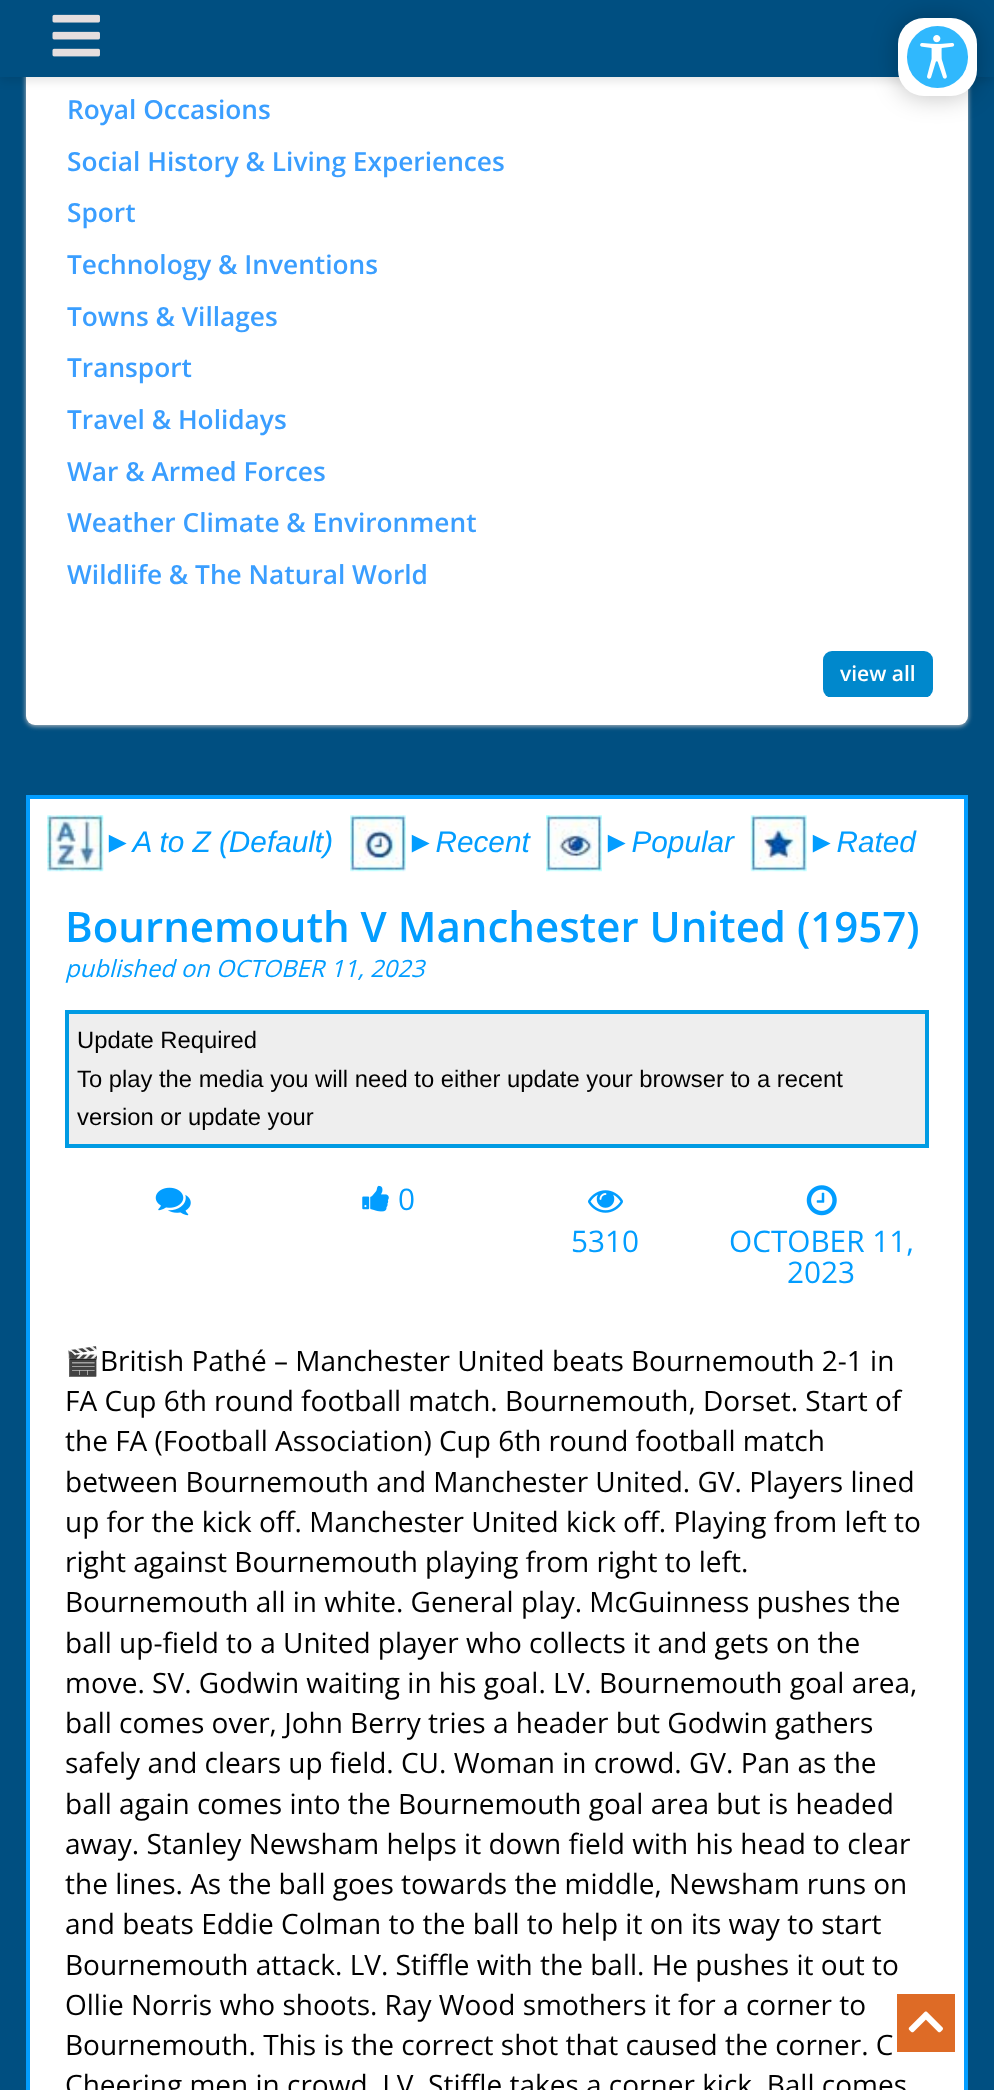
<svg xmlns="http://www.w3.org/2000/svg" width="994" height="2090">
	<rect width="100%" height="100%" fill="#004F81" />
	<rect x="26" y="-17" width="942" height="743" rx="9" fill="#C3C2C3" filter="blur(2.5px)" />
	<rect x="26" y="-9" width="942" height="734" rx="9" fill="#FFFFFF" />
	<rect x="0" y="4" width="994" height="77" fill="#000000" fill-opacity="0.1" filter="blur(5px)" />
	<rect x="0" y="0" width="994" height="77" fill="#004F81" />
	<rect x="898" y="18" width="79" height="78" rx="26" fill="#000000" fill-opacity="0.26" filter="blur(13px)" />
	<rect x="898" y="18" width="79" height="78" rx="26" fill="#FFFFFF" />
	<rect x="907" y="26" width="61" height="62" rx="30.5" fill="#30B8FD" />
	<image x="920" y="35" width="35" height="44" href="assets/img1.png" />
	<image x="52" y="14" width="48" height="43" href="assets/img2.png" />
	<g font-family="Open Sans" font-size="26.25" font-weight="600" fill="#3A9EFF">
		<text x="67" y="119">Royal Occasions</text>
		<text x="67" y="171">Social History &amp; Living Experiences</text>
		<text x="67" y="222">Sport</text>
		<text x="67" y="274">Technology &amp; Inventions</text>
		<text x="67" y="326">Towns &amp; Villages</text>
		<text x="67" y="377">Transport</text>
		<text x="67" y="429">Travel &amp; Holidays</text>
		<text x="67" y="481">War &amp; Armed Forces</text>
		<text x="67" y="532">Weather Climate &amp; Environment</text>
		<text x="67" y="584">Wildlife &amp; The Natural World</text>
	</g>
	<rect x="823" y="651" width="110" height="47" rx="9" fill="#0088CC" />
	<rect x="828" y="697" width="101" height="1" fill="#FFFFFF" />
	<text x="840" y="681" font-family="Open Sans" font-size="21" font-weight="600" fill="#FFFFFF">view all</text>
	<rect x="28" y="797" width="938" height="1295" fill="#FFFFFF" stroke="#029DFF" stroke-width="4" />
	<image x="47" y="815" width="57" height="57" href="assets/img3.png" />
	<text x="103" y="852" font-family="Liberation Sans" font-size="29.75" font-style="italic" fill="#029DFF">►A to Z (Default)</text>
	<image x="350" y="815" width="56" height="57" href="assets/img4.png" />
	<text x="406" y="852" font-family="Liberation Sans" font-size="29.75" font-style="italic" fill="#029DFF">►Recent</text>
	<image x="546" y="815" width="56" height="57" href="assets/img5.png" />
	<text x="602" y="852" font-family="Liberation Sans" font-size="29.75" font-style="italic" fill="#029DFF">►Popular</text>
	<image x="750" y="815" width="57" height="57" href="assets/img6.png" />
	<text x="807" y="852" font-family="Liberation Sans" font-size="29.75" font-style="italic" fill="#029DFF">►Rated</text>
	<text x="65" y="942" font-family="Open Sans" font-size="42" font-weight="600" fill="#029DFF">Bournemouth V Manchester United (1957)</text>
	<text x="65" y="977" font-family="Open Sans" font-size="23.8" font-style="italic" fill="#029DFF">published on OCTOBER 11, 2023</text>
	<rect x="67" y="1012" width="860" height="134" fill="#EEEEEE" stroke="#009BE3" stroke-width="4" />
	<g font-family="Liberation Sans" font-size="23.8" fill="#000000">
		<text x="77" y="1048">Update Required</text>
		<text x="77" y="1087">To play the media you will need to either update your browser to a recent</text>
		<text x="77" y="1125">version or update your</text>
	</g>
	<image x="155" y="1187" width="36" height="29" href="assets/img7.png" />
	<image x="362" y="1185" width="27" height="27" href="assets/img8.png" />
	<text x="398" y="1210" font-family="Open Sans" font-size="29.75" fill="#029DFF">0</text>
	<image x="588" y="1190" width="35" height="23" href="assets/img9.png" />
	<text x="571" y="1252" font-family="Open Sans" font-size="29.75" fill="#029DFF">5310</text>
	<image x="806" y="1185" width="31" height="31" href="assets/img10.png" />
	<g font-family="Open Sans" font-size="29.75" fill="#029DFF">
		<text x="729" y="1252">OCTOBER 11,</text>
		<text x="787" y="1283">2023</text>
	</g>
	<text x="65" y="1371" font-family="Noto Color Emoji" font-size="28" fill="#000000">🎬</text>
	<g font-family="Open Sans" font-size="28" fill="#000000">
		<text x="100" y="1371">British Pathé – Manchester United beats Bournemouth 2-1 in</text>
		<text x="65" y="1411">FA Cup 6th round football match. Bournemouth, Dorset. Start of</text>
		<text x="65" y="1451">the FA (Football Association) Cup 6th round football match</text>
		<text x="65" y="1492">between Bournemouth and Manchester United. GV. Players lined</text>
		<text x="65" y="1532">up for the kick off. Manchester United kick off. Playing from left to</text>
		<text x="65" y="1572">right against Bournemouth playing from right to left.</text>
		<text x="65" y="1612">Bournemouth all in white. General play. McGuinness pushes the</text>
		<text x="65" y="1653">ball up-field to a United player who collects it and gets on the</text>
		<text x="65" y="1693">move. SV. Godwin waiting in his goal. LV. Bournemouth goal area,</text>
		<text x="65" y="1733">ball comes over, John Berry tries a header but Godwin gathers</text>
		<text x="65" y="1773">safely and clears up field. CU. Woman in crowd. GV. Pan as the</text>
		<text x="65" y="1814">ball again comes into the Bournemouth goal area but is headed</text>
		<text x="65" y="1854">away. Stanley Newsham helps it down field with his head to clear</text>
		<text x="65" y="1894">the lines. As the ball goes towards the middle, Newsham runs on</text>
		<text x="65" y="1934">and beats Eddie Colman to the ball to help it on its way to start</text>
		<text x="65" y="1975">Bournemouth attack. LV. Stiffle with the ball. He pushes it out to</text>
		<text x="65" y="2015">Ollie Norris who shoots. Ray Wood smothers it for a corner to</text>
		<text x="65" y="2055">Bournemouth. This is the correct shot that caused the corner. C</text>
		<text x="65" y="2095">Cheering men in crowd. LV. Stiffle takes a corner kick. Ball comes</text>
	</g>
	<rect x="897" y="1994" width="58" height="58" fill="#DE6B26" />
	<image x="908" y="2011" width="35" height="22" href="assets/img11.png" />
</svg>
